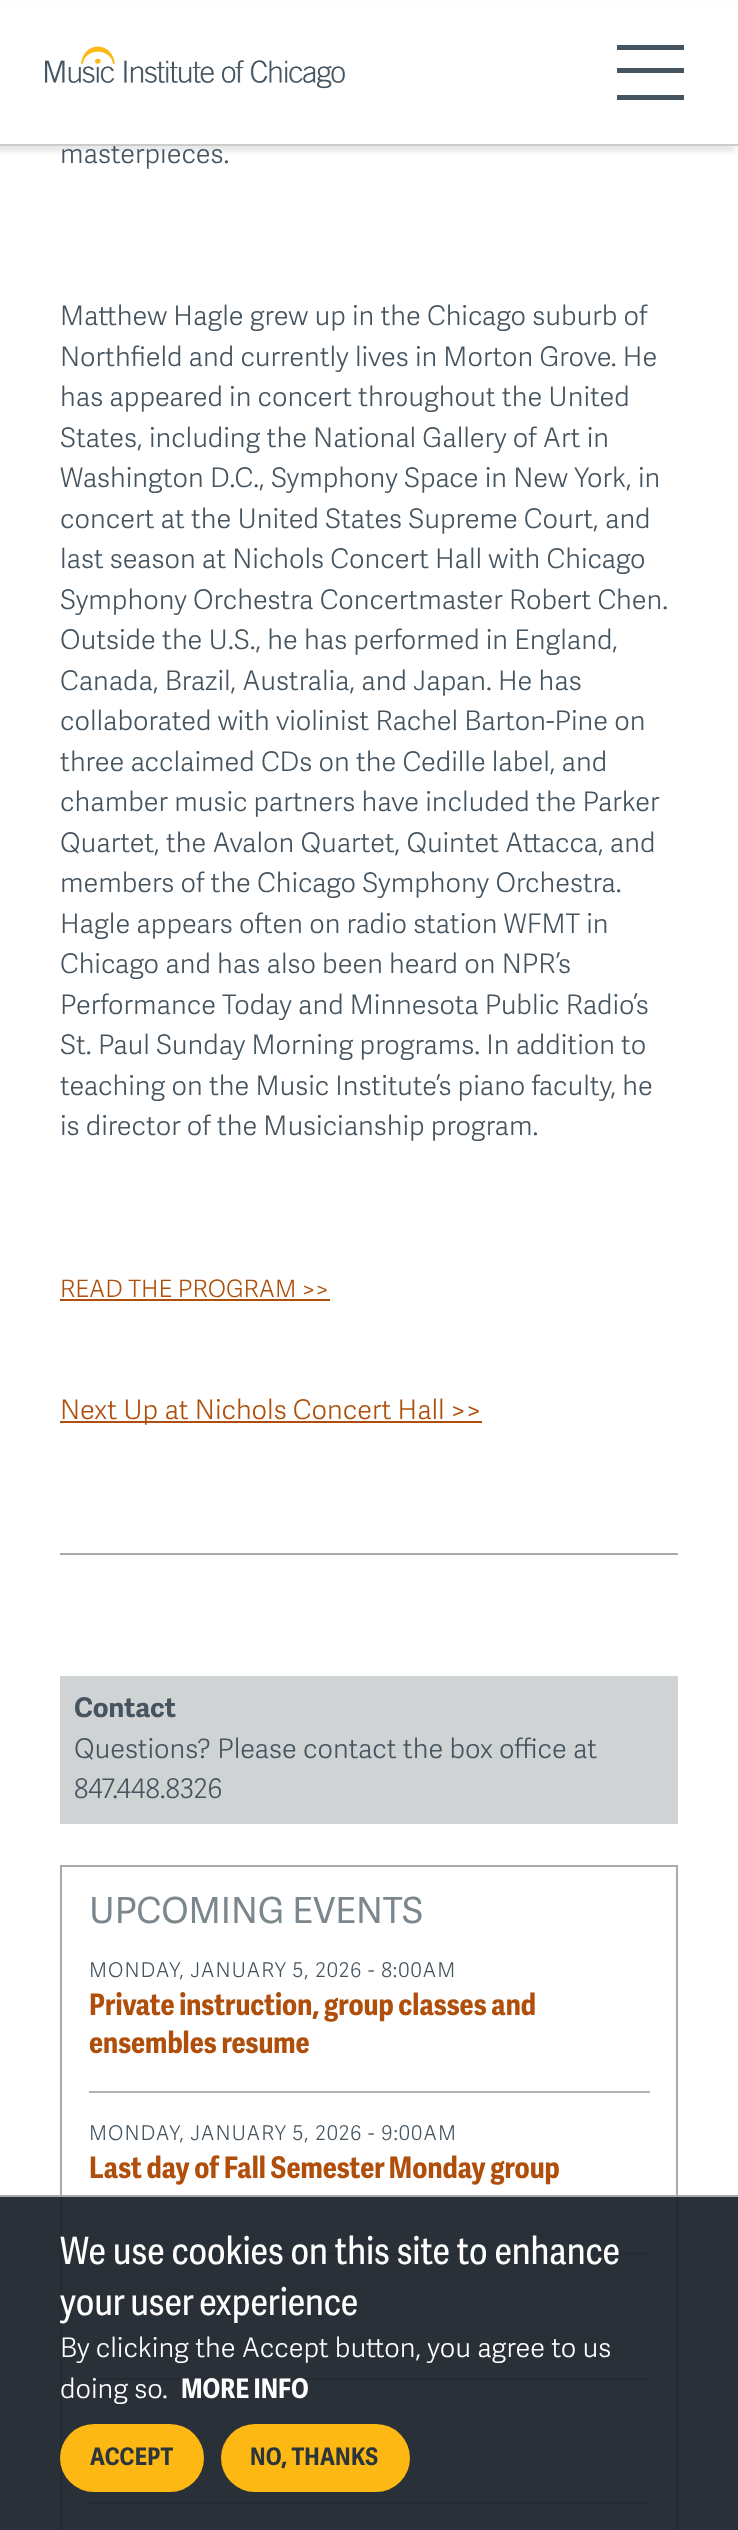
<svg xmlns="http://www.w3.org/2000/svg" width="738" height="2530">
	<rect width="100%" height="100%" fill="#FFFFFF" />
	<rect x="-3" y="6" width="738" height="146" fill="#1D252C" fill-opacity="0.1" filter="blur(2px)" />
	<text x="60" y="163" font-family="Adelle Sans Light" font-size="27" font-weight="300" fill="#45545F">masterpieces.</text>
	<rect x="0" y="4" width="737" height="140" fill="#FFFFFF" />
	<rect x="0" y="144" width="738" height="2" fill="#CCCCCC" />
	<image x="45" y="46" width="300" height="43" href="assets/img1.png" />
	<rect x="617" y="45" width="67" height="5" fill="#45545F" />
	<rect x="617" y="68" width="67" height="5" fill="#45545F" />
	<rect x="617" y="95" width="67" height="5" fill="#45545F" />
	<g font-family="Adelle Sans Light" font-size="27" font-weight="300" fill="#45545F">
		<text x="60" y="325">Matthew Hagle grew up in the Chicago suburb of</text>
		<text x="60" y="366">Northfield and currently lives in Morton Grove. He</text>
		<text x="60" y="406">has appeared in concert throughout the United</text>
		<text x="60" y="447">States, including the National Gallery of Art in</text>
		<text x="60" y="487">Washington D.C., Symphony Space in New York, in</text>
		<text x="60" y="528">concert at the United States Supreme Court, and</text>
		<text x="60" y="568">last season at Nichols Concert Hall with Chicago</text>
		<text x="60" y="609">Symphony Orchestra Concertmaster Robert Chen.</text>
		<text x="60" y="649">Outside the U.S., he has performed in England,</text>
		<text x="60" y="690">Canada, Brazil, Australia, and Japan. He has</text>
		<text x="60" y="730">collaborated with violinist Rachel Barton-Pine on</text>
		<text x="60" y="771">three acclaimed CDs on the Cedille label, and</text>
		<text x="60" y="811">chamber music partners have included the Parker</text>
		<text x="60" y="852">Quartet, the Avalon Quartet, Quintet Attacca, and</text>
		<text x="60" y="892">members of the Chicago Symphony Orchestra.</text>
		<text x="60" y="933">Hagle appears often on radio station WFMT in</text>
		<text x="60" y="973">Chicago and has also been heard on NPR’s</text>
		<text x="60" y="1014">Performance Today and Minnesota Public Radio’s</text>
		<text x="60" y="1054">St. Paul Sunday Morning programs. In addition to</text>
		<text x="60" y="1095">teaching on the Music Institute’s piano faculty, he</text>
		<text x="60" y="1135">is director of the Musicianship program.</text>
	</g>
	<text x="60" y="1297" font-family="Adelle Sans Light" font-size="24" font-weight="300" fill="#AF4F0B">READ THE PROGRAM &gt;&gt;</text>
	<rect x="60" y="1299" width="270" height="2" fill="#AF4F0B" />
	<rect x="60" y="1421" width="422" height="2" fill="#AF4F0B" />
	<text x="60" y="1419" font-family="Adelle Sans Light" font-size="27" font-weight="300" fill="#AF4F0B">Next Up at Nichols Concert Hall &gt;&gt;</text>
	<rect x="60" y="1553" width="618" height="2" fill="#A4AAAD" />
	<rect x="60" y="1676" width="618" height="148" fill="#D0D3D4" />
	<text x="74" y="1717" font-family="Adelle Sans" font-size="27" font-weight="700" fill="#45545F">Contact</text>
	<g font-family="Adelle Sans Light" font-size="27" font-weight="300" fill="#45545F">
		<text x="74" y="1758">Questions? Please contact the box office at</text>
		<text x="74" y="1798">847.448.8326</text>
	</g>
	<rect x="61" y="1866" width="616" height="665" fill="none" stroke="#A4AAAD" stroke-width="2" />
	<text x="89" y="1923" font-family="Adelle Sans" font-size="36" fill="#7C868D">UPCOMING EVENTS</text>
	<rect x="89" y="2091" width="561" height="2" fill="#B0B3B5" />
	<text x="89" y="1977" font-family="Adelle Sans Light" font-size="20.25" font-weight="300" letter-spacing="1" fill="#45545F">MONDAY, JANUARY 5, 2026 - 8:00AM</text>
	<g font-family="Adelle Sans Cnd" font-size="29.75" font-weight="700" fill="#AF4F0B">
		<text x="89" y="2015">Private instruction, group classes and</text>
		<text x="89" y="2053">ensembles resume</text>
	</g>
	<rect x="89" y="2253" width="561" height="2" fill="#B0B3B5" />
	<text x="89" y="2140" font-family="Adelle Sans Light" font-size="20.25" font-weight="300" letter-spacing="1" fill="#45545F">MONDAY, JANUARY 5, 2026 - 9:00AM</text>
	<text x="89" y="2178" font-family="Adelle Sans Cnd" font-size="29.75" font-weight="700" fill="#AF4F0B">Last day of Fall Semester Monday group</text>
	<rect x="89" y="2378" width="561" height="2" fill="#B0B3B5" />
	<rect x="89" y="2502" width="561" height="2" fill="#B0B3B5" />
	<rect x="0" y="2197" width="738" height="333" fill="#1D252C" fill-opacity="0.95" />
	<rect x="0" y="2195" width="738" height="2" fill="#A4AAAD" />
	<g font-family="Adelle Sans Cnd" font-size="37.75" fill="#FFFFFF">
		<text x="60" y="2264">We use cookies on this site to enhance</text>
		<text x="60" y="2315">your user experience</text>
	</g>
	<g font-family="Adelle Sans Light" font-size="27" font-weight="300" fill="#FFFFFF">
		<text x="60" y="2357">By clicking the Accept button, you agree to us</text>
		<text x="60" y="2398">doing so.</text>
	</g>
	<text x="181" y="2398" font-family="Adelle Sans Cnd" font-size="27" font-weight="700" fill="#FFFFFF">MORE INFO</text>
	<rect x="60" y="2424" width="144" height="68" rx="34" fill="#FDB813" />
	<text x="90" y="2465" font-family="Adelle Sans Cnd" font-size="24.25" font-weight="700" letter-spacing="0.25" fill="#2B353C">ACCEPT</text>
	<rect x="221" y="2424" width="189" height="68" rx="34" fill="#FDB813" />
	<text x="250" y="2465" font-family="Adelle Sans Cnd" font-size="24.25" font-weight="700" letter-spacing="0.25" fill="#2B353C">NO, THANKS</text>
</svg>
